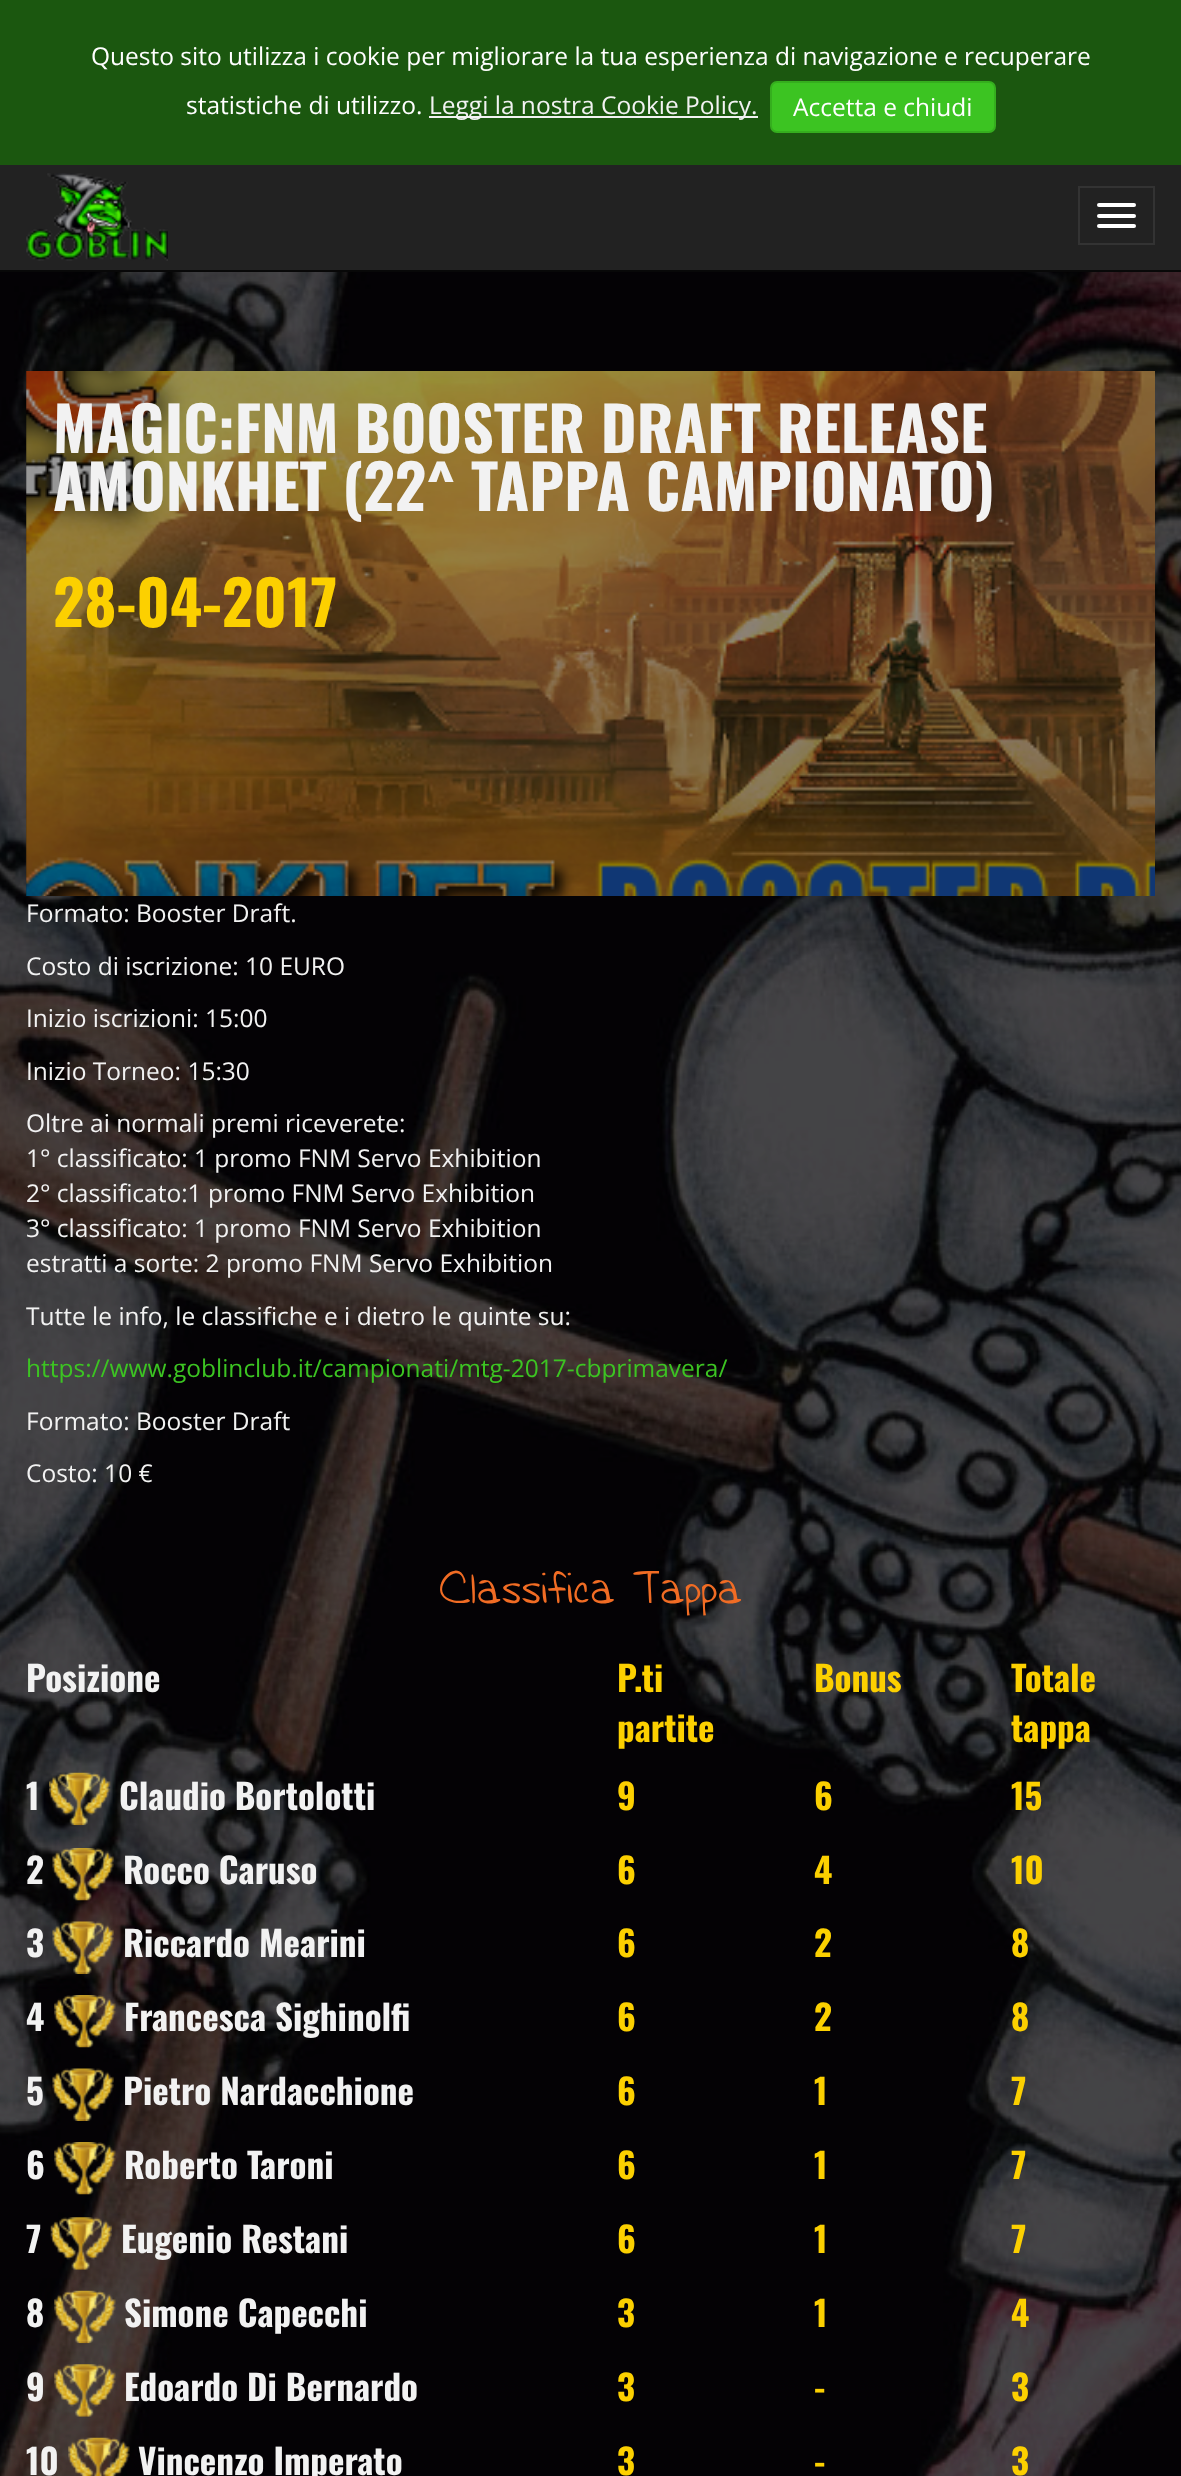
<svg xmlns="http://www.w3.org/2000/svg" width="1181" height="2476">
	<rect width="100%" height="100%" fill="#FFFFFF" />
	<rect x="0" y="165" width="1181" height="105" fill="#222222" />
	<rect x="0" y="270" width="1181" height="2" fill="#080808" />
	<rect x="0" y="0" width="1181" height="165" fill="#1B570F" />
	<g font-family="Open Sans" font-size="24.5" fill="#FFFFFF">
		<text x="91" y="65">Questo sito utilizza i cookie per migliorare la tua esperienza di navigazione e recuperare</text>
		<text x="186" y="114">statistiche di utilizzo.</text>
	</g>
	<rect x="429" y="116" width="329" height="2" fill="#F2F2F2" />
	<text x="429" y="114" font-family="Open Sans" font-size="24.5" fill="#F2F2F2">Leggi la nostra Cookie Policy.</text>
	<rect x="771" y="82" width="224" height="50" rx="6" fill="#3CC422" stroke="#35AE1E" stroke-width="2" />
	<text x="793" y="116" font-family="Open Sans" font-size="24.5" fill="#FFFFFF">Accetta e chiudi</text>
	<image x="26" y="173" width="142" height="88" href="assets/img1.png" />
	<rect x="1079" y="187" width="75" height="57" fill="none" stroke="#333333" stroke-width="2" />
	<rect x="1097" y="203" width="39" height="4" rx="2" fill="#FFFFFF" />
	<rect x="1097" y="214" width="39" height="4" rx="2" fill="#FFFFFF" />
	<rect x="1097" y="224" width="39" height="4" rx="2" fill="#FFFFFF" />
	<image x="0" y="272" width="1181" height="2204" href="assets/img2.png" />
	<image x="26" y="371" width="1129" height="525" href="assets/img3.png" />
	<rect x="26" y="371" width="1129" height="525" fill="#000000" fill-opacity="0.4" />
	<g font-family="Oswald" font-size="61.25" font-weight="700" fill="#F2F2F2">
		<text x="53" y="453">MAGIC:FNM BOOSTER DRAFT RELEASE</text>
		<text x="53" y="511">AMONKHET (22^ TAPPA CAMPIONATO)</text>
	</g>
	<text x="53" y="627" font-family="Oswald" font-size="61.25" font-weight="700" fill="#FCD000">28-04-2017</text>
	<g font-family="Open Sans" font-size="24.5" fill="#F2F2F2">
		<text x="26" y="922">Formato: Booster Draft.</text>
		<text x="26" y="975">Costo di iscrizione: 10 EURO</text>
		<text x="26" y="1027">Inizio iscrizioni: 15:00</text>
		<text x="26" y="1080">Inizio Torneo: 15:30</text>
		<text x="26" y="1132">Oltre ai normali premi riceverete:</text>
		<text x="26" y="1167">1° classificato: 1 promo FNM Servo Exhibition</text>
		<text x="26" y="1202">2° classificato:1 promo FNM Servo Exhibition</text>
		<text x="26" y="1237">3° classificato: 1 promo FNM Servo Exhibition</text>
		<text x="26" y="1272">estratti a sorte: 2 promo FNM Servo Exhibition</text>
		<text x="26" y="1325">Tutte le info, le classifiche e i dietro le quinte su:</text>
	</g>
	<text x="26" y="1377" font-family="Open Sans" font-size="24.5" fill="#3CC422">https://www.goblinclub.it/campionati/mtg-2017-cbprimavera/</text>
	<g font-family="Open Sans" font-size="24.5" fill="#F2F2F2">
		<text x="26" y="1430">Formato: Booster Draft</text>
		<text x="26" y="1482">Costo: 10 €</text>
	</g>
	<text x="439" y="1603" font-family="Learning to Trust" font-size="35" fill="#F16C24">Classifica Tappa</text>
	<text x="26" y="1692" font-family="Oswald" font-size="35" font-weight="700" fill="#F2F2F2">Posizione</text>
	<g font-family="Oswald" font-size="35" font-weight="700" fill="#FCD000">
		<text x="617" y="1692">P.ti</text>
		<text x="617" y="1742">partite</text>
		<text x="814" y="1692">Bonus</text>
		<text x="1011" y="1692">Totale</text>
		<text x="1011" y="1742">tappa</text>
	</g>
	<text x="26" y="1810" font-family="Oswald" font-size="35" font-weight="700" fill="#F2F2F2">1</text>
	<image x="49" y="1772" width="62" height="54" href="assets/img4.png" />
	<text x="119" y="1810" font-family="Oswald" font-size="35" font-weight="700" fill="#F2F2F2">Claudio Bortolotti</text>
	<g font-family="Oswald" font-size="35" font-weight="700" fill="#FCD000">
		<text x="617" y="1810">9</text>
		<text x="814" y="1810">6</text>
		<text x="1011" y="1810">15</text>
	</g>
	<text x="26" y="1884" font-family="Oswald" font-size="35" font-weight="700" fill="#F2F2F2">2</text>
	<image x="52" y="1848" width="62" height="53" href="assets/img5.png" />
	<text x="123" y="1884" font-family="Oswald" font-size="35" font-weight="700" fill="#F2F2F2">Rocco Caruso</text>
	<g font-family="Oswald" font-size="35" font-weight="700" fill="#FCD000">
		<text x="617" y="1884">6</text>
		<text x="814" y="1884">4</text>
		<text x="1011" y="1884">10</text>
	</g>
	<text x="26" y="1957" font-family="Oswald" font-size="35" font-weight="700" fill="#F2F2F2">3</text>
	<image x="52" y="1921" width="62" height="53" href="assets/img6.png" />
	<text x="123" y="1957" font-family="Oswald" font-size="35" font-weight="700" fill="#F2F2F2">Riccardo Mearini</text>
	<g font-family="Oswald" font-size="35" font-weight="700" fill="#FCD000">
		<text x="617" y="1957">6</text>
		<text x="814" y="1957">2</text>
		<text x="1011" y="1957">8</text>
	</g>
	<text x="26" y="2031" font-family="Oswald" font-size="35" font-weight="700" fill="#F2F2F2">4</text>
	<image x="54" y="1995" width="62" height="53" href="assets/img7.png" />
	<text x="124" y="2031" font-family="Oswald" font-size="35" font-weight="700" fill="#F2F2F2">Francesca Sighinolfi</text>
	<g font-family="Oswald" font-size="35" font-weight="700" fill="#FCD000">
		<text x="617" y="2031">6</text>
		<text x="814" y="2031">2</text>
		<text x="1011" y="2031">8</text>
	</g>
	<text x="26" y="2105" font-family="Oswald" font-size="35" font-weight="700" fill="#F2F2F2">5</text>
	<image x="52" y="2068" width="62" height="53" href="assets/img8.png" />
	<text x="123" y="2105" font-family="Oswald" font-size="35" font-weight="700" fill="#F2F2F2">Pietro Nardacchione</text>
	<g font-family="Oswald" font-size="35" font-weight="700" fill="#FCD000">
		<text x="617" y="2105">6</text>
		<text x="814" y="2105">1</text>
		<text x="1011" y="2105">7</text>
	</g>
	<text x="26" y="2179" font-family="Oswald" font-size="35" font-weight="700" fill="#F2F2F2">6</text>
	<image x="54" y="2142" width="62" height="53" href="assets/img9.png" />
	<text x="124" y="2179" font-family="Oswald" font-size="35" font-weight="700" fill="#F2F2F2">Roberto Taroni</text>
	<g font-family="Oswald" font-size="35" font-weight="700" fill="#FCD000">
		<text x="617" y="2179">6</text>
		<text x="814" y="2179">1</text>
		<text x="1011" y="2179">7</text>
	</g>
	<text x="26" y="2253" font-family="Oswald" font-size="35" font-weight="700" fill="#F2F2F2">7</text>
	<image x="50" y="2217" width="62" height="53" href="assets/img10.png" />
	<text x="121" y="2253" font-family="Oswald" font-size="35" font-weight="700" fill="#F2F2F2">Eugenio Restani</text>
	<g font-family="Oswald" font-size="35" font-weight="700" fill="#FCD000">
		<text x="617" y="2253">6</text>
		<text x="814" y="2253">1</text>
		<text x="1011" y="2253">7</text>
	</g>
	<text x="26" y="2327" font-family="Oswald" font-size="35" font-weight="700" fill="#F2F2F2">8</text>
	<image x="54" y="2290" width="62" height="54" href="assets/img11.png" />
	<text x="124" y="2327" font-family="Oswald" font-size="35" font-weight="700" fill="#F2F2F2">Simone Capecchi</text>
	<g font-family="Oswald" font-size="35" font-weight="700" fill="#FCD000">
		<text x="617" y="2327">3</text>
		<text x="814" y="2327">1</text>
		<text x="1011" y="2327">4</text>
	</g>
	<text x="26" y="2401" font-family="Oswald" font-size="35" font-weight="700" fill="#F2F2F2">9</text>
	<image x="54" y="2364" width="62" height="53" href="assets/img12.png" />
	<text x="124" y="2401" font-family="Oswald" font-size="35" font-weight="700" fill="#F2F2F2">Edoardo Di Bernardo</text>
	<g font-family="Oswald" font-size="35" font-weight="700" fill="#FCD000">
		<text x="617" y="2401">3</text>
		<text x="814" y="2401">-</text>
		<text x="1011" y="2401">3</text>
	</g>
	<text x="26" y="2475" font-family="Oswald" font-size="35" font-weight="700" fill="#F2F2F2">10</text>
	<image x="68" y="2437" width="62" height="39" href="assets/img13.png" />
	<text x="138" y="2475" font-family="Oswald" font-size="35" font-weight="700" fill="#F2F2F2">Vincenzo Imperato</text>
	<g font-family="Oswald" font-size="35" font-weight="700" fill="#FCD000">
		<text x="617" y="2475">3</text>
		<text x="814" y="2475">-</text>
		<text x="1011" y="2475">3</text>
	</g>
</svg>
